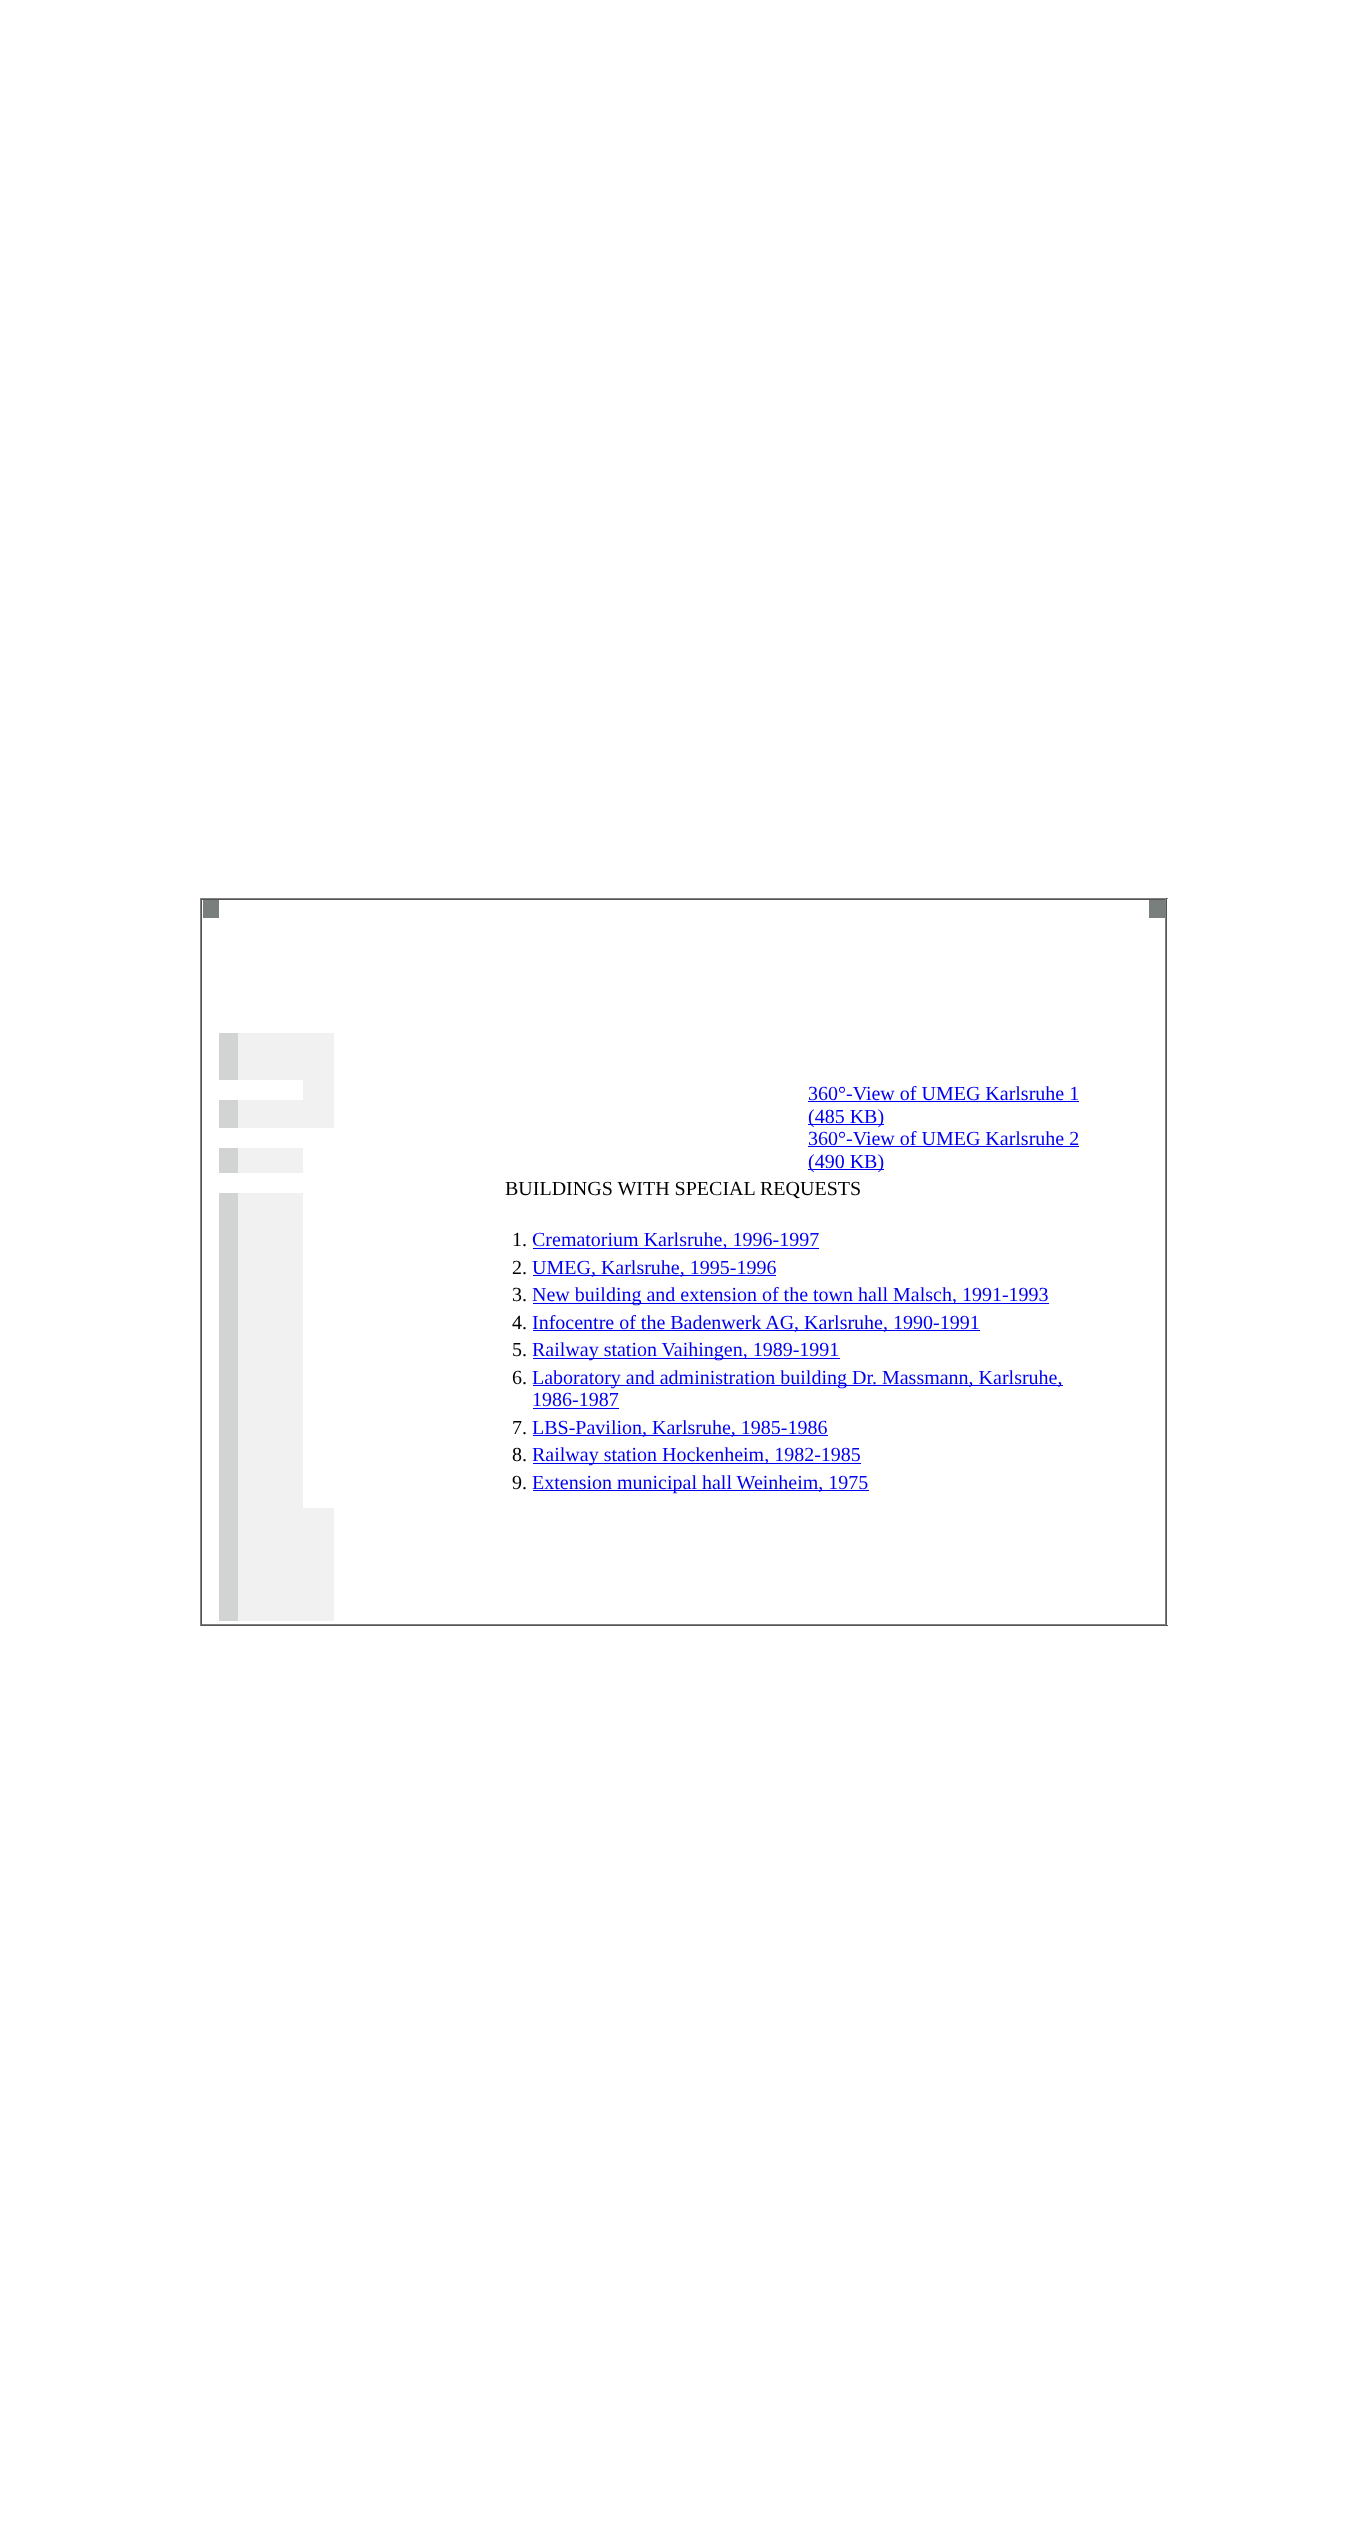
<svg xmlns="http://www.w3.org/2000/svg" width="1367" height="2523">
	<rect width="100%" height="100%" fill="#FFFFFF" />
	<rect x="200" y="898" width="968" height="1" fill="#808080" />
	<rect x="1166" y="898" width="1" height="728" fill="#555555" />
	<rect x="200" y="1625" width="968" height="1" fill="#555555" />
	<rect x="200" y="898" width="1" height="728" fill="#808080" />
	<rect x="201" y="899" width="965" height="1" fill="#555555" />
	<rect x="1165" y="899" width="1" height="726" fill="#808080" />
	<rect x="201" y="1624" width="965" height="1" fill="#808080" />
	<rect x="201" y="899" width="1" height="726" fill="#555555" />
	<rect x="203" y="900" width="16" height="18" fill="#797F7C" />
	<rect x="1149" y="900" width="16" height="18" fill="#797F7C" />
	<rect x="219" y="1033" width="19" height="47" fill="#D1D4D2" />
	<rect x="238" y="1033" width="96" height="47" fill="#F0F1F0" />
	<rect x="219" y="1100" width="19" height="28" fill="#D1D4D2" />
	<rect x="238" y="1100" width="65" height="28" fill="#F0F1F0" />
	<rect x="219" y="1148" width="19" height="25" fill="#D1D4D2" />
	<rect x="238" y="1148" width="65" height="25" fill="#F0F1F0" />
	<rect x="219" y="1193" width="19" height="428" fill="#D1D4D2" />
	<rect x="238" y="1193" width="65" height="428" fill="#F0F1F0" />
	<rect x="303" y="1080" width="31" height="48" fill="#F0F1F0" />
	<rect x="303" y="1508" width="31" height="113" fill="#F0F1F0" />
	<text x="808" y="1100" font-family="Liberation Serif" font-size="20" fill="#0000EE">360°-View of UMEG Karlsruhe 1</text>
	<rect x="808" y="1101" width="271" height="1" fill="#0000EE" />
	<rect x="808" y="1124" width="76" height="1" fill="#0000EE" />
	<g font-family="Liberation Serif" font-size="20" fill="#0000EE">
		<text x="808" y="1123">(485 KB)</text>
		<text x="808" y="1145">360°-View of UMEG Karlsruhe 2</text>
	</g>
	<rect x="808" y="1146" width="271" height="1" fill="#0000EE" />
	<rect x="808" y="1169" width="76" height="1" fill="#0000EE" />
	<text x="808" y="1168" font-family="Liberation Serif" font-size="20" fill="#0000EE">(490 KB)</text>
	<g font-family="Liberation Serif" font-size="20" fill="#000000">
		<text x="505" y="1195">BUILDINGS WITH SPECIAL REQUESTS</text>
		<text x="512" y="1246">1.</text>
	</g>
	<rect x="533" y="1248" width="286" height="1" fill="#0000EE" />
	<text x="532" y="1246" font-family="Liberation Serif" font-size="20" fill="#0000EE">Crematorium Karlsruhe, 1996-1997</text>
	<text x="512" y="1274" font-family="Liberation Serif" font-size="20" fill="#000000">2.</text>
	<rect x="533" y="1275" width="243" height="1" fill="#0000EE" />
	<text x="532" y="1274" font-family="Liberation Serif" font-size="20" fill="#0000EE">UMEG, Karlsruhe, 1995-1996</text>
	<text x="512" y="1301" font-family="Liberation Serif" font-size="20" fill="#000000">3.</text>
	<rect x="533" y="1303" width="516" height="1" fill="#0000EE" />
	<text x="532" y="1301" font-family="Liberation Serif" font-size="20" fill="#0000EE">New building and extension of the town hall Malsch, 1991-1993</text>
	<text x="512" y="1329" font-family="Liberation Serif" font-size="20" fill="#000000">4.</text>
	<rect x="533" y="1330" width="447" height="1" fill="#0000EE" />
	<text x="532" y="1329" font-family="Liberation Serif" font-size="20" fill="#0000EE">Infocentre of the Badenwerk AG, Karlsruhe, 1990-1991</text>
	<text x="512" y="1356" font-family="Liberation Serif" font-size="20" fill="#000000">5.</text>
	<rect x="533" y="1358" width="307" height="1" fill="#0000EE" />
	<text x="532" y="1356" font-family="Liberation Serif" font-size="20" fill="#0000EE">Railway station Vaihingen, 1989-1991</text>
	<text x="512" y="1384" font-family="Liberation Serif" font-size="20" fill="#000000">6.</text>
	<rect x="533" y="1385" width="530" height="1" fill="#0000EE" />
	<g font-family="Liberation Serif" font-size="20" fill="#0000EE">
		<text x="532" y="1384">Laboratory and administration building Dr. Massmann, Karlsruhe,</text>
		<text x="532" y="1406">1986-1987</text>
	</g>
	<rect x="533" y="1408" width="86" height="1" fill="#0000EE" />
	<text x="512" y="1434" font-family="Liberation Serif" font-size="20" fill="#000000">7.</text>
	<rect x="533" y="1435" width="295" height="1" fill="#0000EE" />
	<text x="532" y="1434" font-family="Liberation Serif" font-size="20" fill="#0000EE">LBS-Pavilion, Karlsruhe, 1985-1986</text>
	<text x="512" y="1461" font-family="Liberation Serif" font-size="20" fill="#000000">8.</text>
	<rect x="533" y="1463" width="328" height="1" fill="#0000EE" />
	<text x="532" y="1461" font-family="Liberation Serif" font-size="20" fill="#0000EE">Railway station Hockenheim, 1982-1985</text>
	<text x="512" y="1489" font-family="Liberation Serif" font-size="20" fill="#000000">9.</text>
	<rect x="533" y="1490" width="336" height="1" fill="#0000EE" />
	<text x="532" y="1489" font-family="Liberation Serif" font-size="20" fill="#0000EE">Extension municipal hall Weinheim, 1975</text>
</svg>
